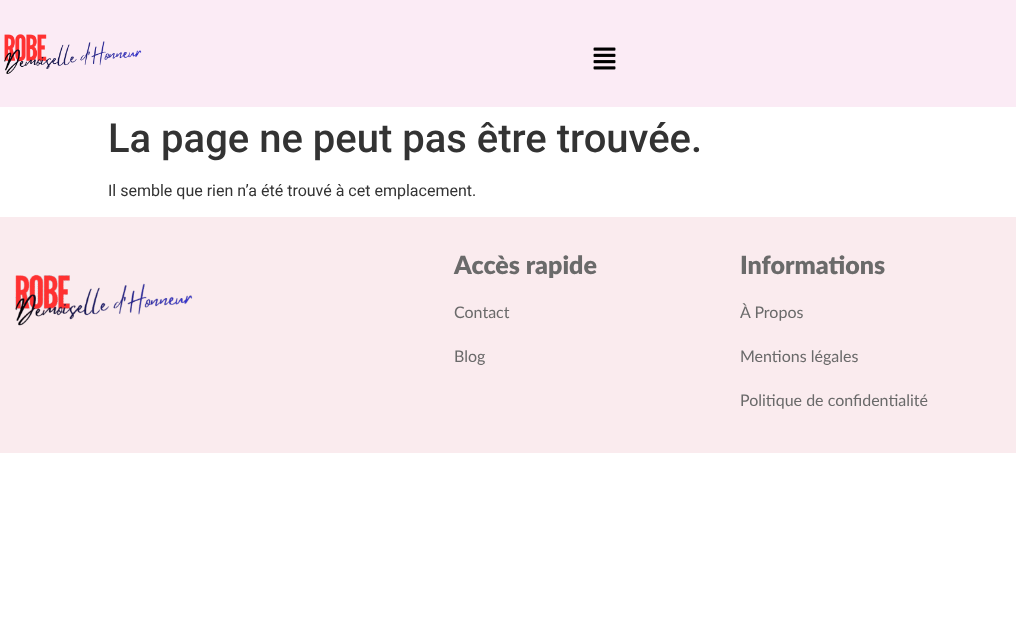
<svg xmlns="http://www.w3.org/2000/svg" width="1016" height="629">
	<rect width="100%" height="100%" fill="#FFFFFF" />
	<rect x="0" y="0" width="1016" height="107" fill="#FBEBF5" />
	<image x="4" y="34" width="138" height="40" href="assets/img1.png" />
	<image x="593" y="47" width="23" height="23" href="assets/img2.png" />
	<text x="108" y="152" font-family="Roboto" font-size="40" font-weight="500" fill="#333333">La page ne peut pas être trouvée.</text>
	<text x="108" y="196" font-family="Roboto" font-size="16" fill="#333333">Il semble que rien n’a été trouvé à cet emplacement.</text>
	<rect x="0" y="217" width="1016" height="236" fill="#FAEBEE" />
	<image x="15" y="274" width="178" height="52" href="assets/img3.png" />
	<text x="454" y="274" font-family="Lato" font-size="25" font-weight="800" fill="#6A6A6A">Accès rapide</text>
	<g font-family="Lato" font-size="16" fill="#6A6A6A">
		<text x="454" y="318">Contact</text>
		<text x="454" y="362">Blog</text>
	</g>
	<text x="740" y="274" font-family="Lato" font-size="25" font-weight="800" fill="#6A6A6A">Informations</text>
	<g font-family="Lato" font-size="16" fill="#6A6A6A">
		<text x="740" y="318">À Propos</text>
		<text x="740" y="362">Mentions légales</text>
		<text x="740" y="406">Politique de confidentialité</text>
	</g>
</svg>
